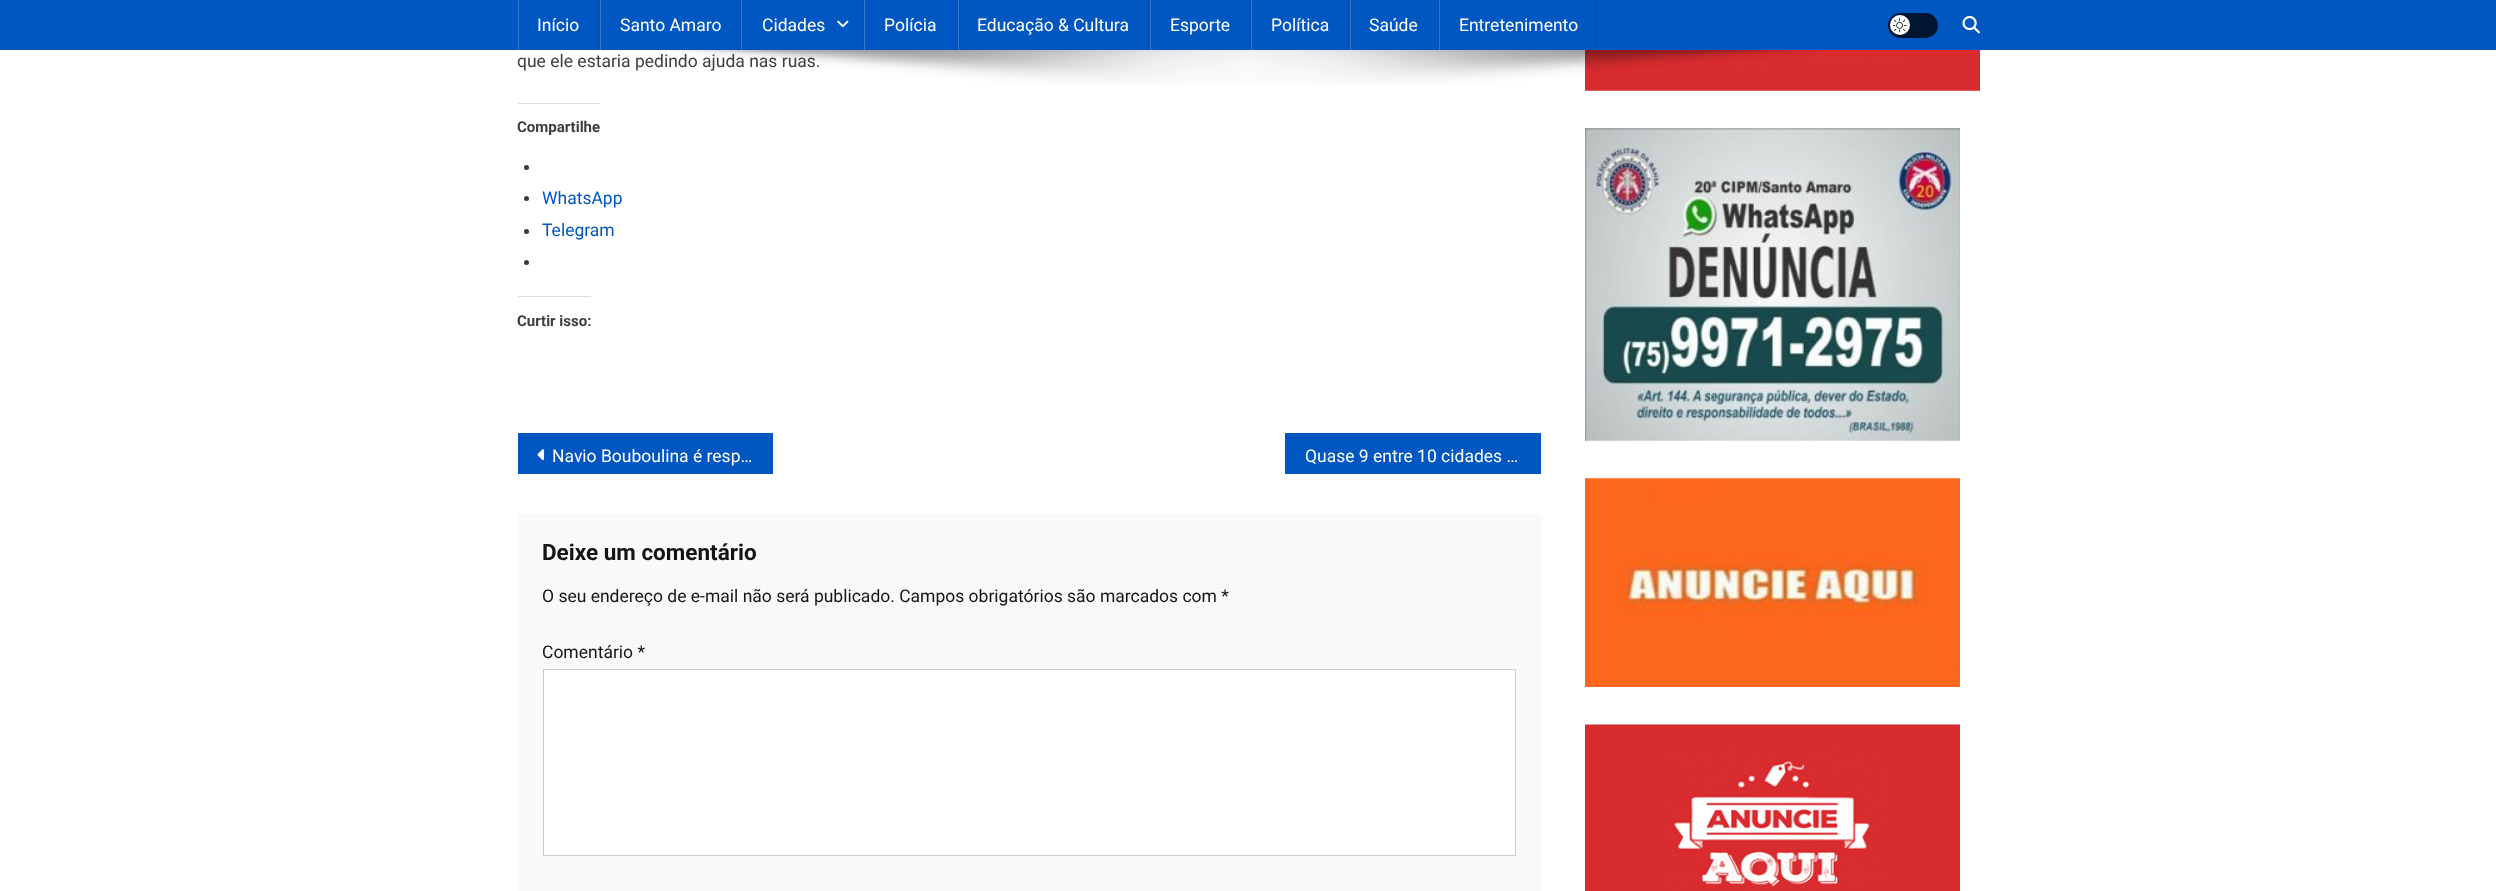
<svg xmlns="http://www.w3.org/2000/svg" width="2496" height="891">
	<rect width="100%" height="100%" fill="#FFFFFF" />
	<rect x="0" y="0" width="2496" height="50" fill="#0057C1" />
	<rect x="598" y="0" width="1" height="50" fill="#0050B2" />
	<rect x="518" y="0" width="1" height="50" fill="#3379CD" />
	<text x="537" y="31" font-family="Roboto" font-size="17.5" fill="#FFFFFF">Início</text>
	<rect x="740" y="0" width="1" height="50" fill="#0050B2" />
	<rect x="600" y="0" width="1" height="50" fill="#3379CD" />
	<text x="620" y="31" font-family="Roboto" font-size="17.5" fill="#FFFFFF">Santo Amaro</text>
	<rect x="863" y="0" width="1" height="50" fill="#0050B2" />
	<rect x="741" y="0" width="1" height="50" fill="#3379CD" />
	<text x="762" y="31" font-family="Roboto" font-size="17.5" fill="#FFFFFF">Cidades</text>
	<image x="837" y="20" width="12" height="8" href="assets/img1.png" />
	<rect x="955" y="0" width="1" height="50" fill="#0050B2" />
	<rect x="864" y="0" width="1" height="50" fill="#3379CD" />
	<text x="884" y="31" font-family="Roboto" font-size="17.5" fill="#FFFFFF">Polícia</text>
	<rect x="1148" y="0" width="1" height="50" fill="#0050B2" />
	<rect x="958" y="0" width="1" height="50" fill="#3379CD" />
	<text x="977" y="31" font-family="Roboto" font-size="17.5" fill="#FFFFFF">Educação &amp; Cultura</text>
	<rect x="1249" y="0" width="1" height="50" fill="#0050B2" />
	<rect x="1150" y="0" width="1" height="50" fill="#3379CD" />
	<text x="1170" y="31" font-family="Roboto" font-size="17.5" fill="#FFFFFF">Esporte</text>
	<rect x="1348" y="0" width="1" height="50" fill="#0050B2" />
	<rect x="1251" y="0" width="1" height="50" fill="#3379CD" />
	<text x="1271" y="31" font-family="Roboto" font-size="17.5" fill="#FFFFFF">Política</text>
	<rect x="1438" y="0" width="1" height="50" fill="#0050B2" />
	<rect x="1350" y="0" width="1" height="50" fill="#3379CD" />
	<text x="1369" y="31" font-family="Roboto" font-size="17.5" fill="#FFFFFF">Saúde</text>
	<rect x="1596" y="0" width="1" height="50" fill="#0050B2" />
	<rect x="1439" y="0" width="1" height="50" fill="#3379CD" />
	<text x="1459" y="31" font-family="Roboto" font-size="17.5" fill="#FFFFFF">Entretenimento</text>
	<rect x="1888" y="13" width="50" height="25" rx="12.5" fill="#001630" />
	<circle cx="1900" cy="25" r="10" fill="#FFFFFF" />
	<image x="1893" y="18" width="14" height="15" href="assets/img2.png" />
	<image x="1962" y="15" width="18" height="19" href="assets/img3.png" />
	<text x="517" y="67" font-family="Roboto" font-size="17.5" fill="#3D3D3D">que ele estaria pedindo ajuda nas ruas.</text>
	<image x="1585" y="50" width="395" height="41" href="assets/img6.png" />
	<image x="670" y="50" width="1156" height="34" href="assets/img4.png" />
	<rect x="518" y="103" width="82" height="1" fill="#DCDCDE" />
	<text x="517" y="132" font-family="Roboto" font-size="15" font-weight="700" fill="#3D3D3D">Compartilhe</text>
	<circle cx="526.5" cy="167.5" r="2.5" fill="#3D3D3D" />
	<circle cx="526.5" cy="198.5" r="2.5" fill="#3D3D3D" />
	<text x="542" y="204" font-family="Roboto" font-size="17.5" fill="#0057C1">WhatsApp</text>
	<circle cx="526.5" cy="231.5" r="2.5" fill="#3D3D3D" />
	<text x="542" y="236" font-family="Roboto" font-size="17.5" fill="#0057C1">Telegram</text>
	<circle cx="526.5" cy="262.5" r="2.5" fill="#3D3D3D" />
	<rect x="518" y="296" width="73" height="1" fill="#DCDCDE" />
	<text x="517" y="326" font-family="Roboto" font-size="15" font-weight="700" fill="#3D3D3D">Curtir isso:</text>
	<rect x="518" y="433" width="255" height="41" fill="#0057C1" />
	<image x="537" y="449" width="8" height="12" href="assets/img5.png" />
	<text x="552" y="462" font-family="Roboto" font-size="17.5" fill="#FFFFFF">Navio Bouboulina é resp…</text>
	<rect x="1285" y="433" width="256" height="41" fill="#0057C1" />
	<text x="1305" y="462" font-family="Roboto" font-size="17.5" fill="#FFFFFF">Quase 9 entre 10 cidades …</text>
	<rect x="518" y="514" width="1023" height="377" fill="#F9F9F9" />
	<text x="542" y="560" font-family="Roboto" font-size="22.5" font-weight="700" fill="#141414">Deixe um comentário</text>
	<g font-family="Roboto" font-size="17.5" fill="#141414">
		<text x="542" y="602">O seu endereço de e-mail não será publicado. Campos obrigatórios são marcados com *</text>
		<text x="542" y="658">Comentário *</text>
	</g>
	<rect x="543.5" y="669.5" width="972" height="186" fill="#FFFFFF" stroke="#CCCCCC" />
	<image x="1585" y="128" width="375" height="313" href="assets/img7.png" />
	<image x="1585" y="478" width="375" height="209" href="assets/img8.png" />
	<image x="1585" y="724" width="375" height="167" href="assets/img9.png" />
</svg>
